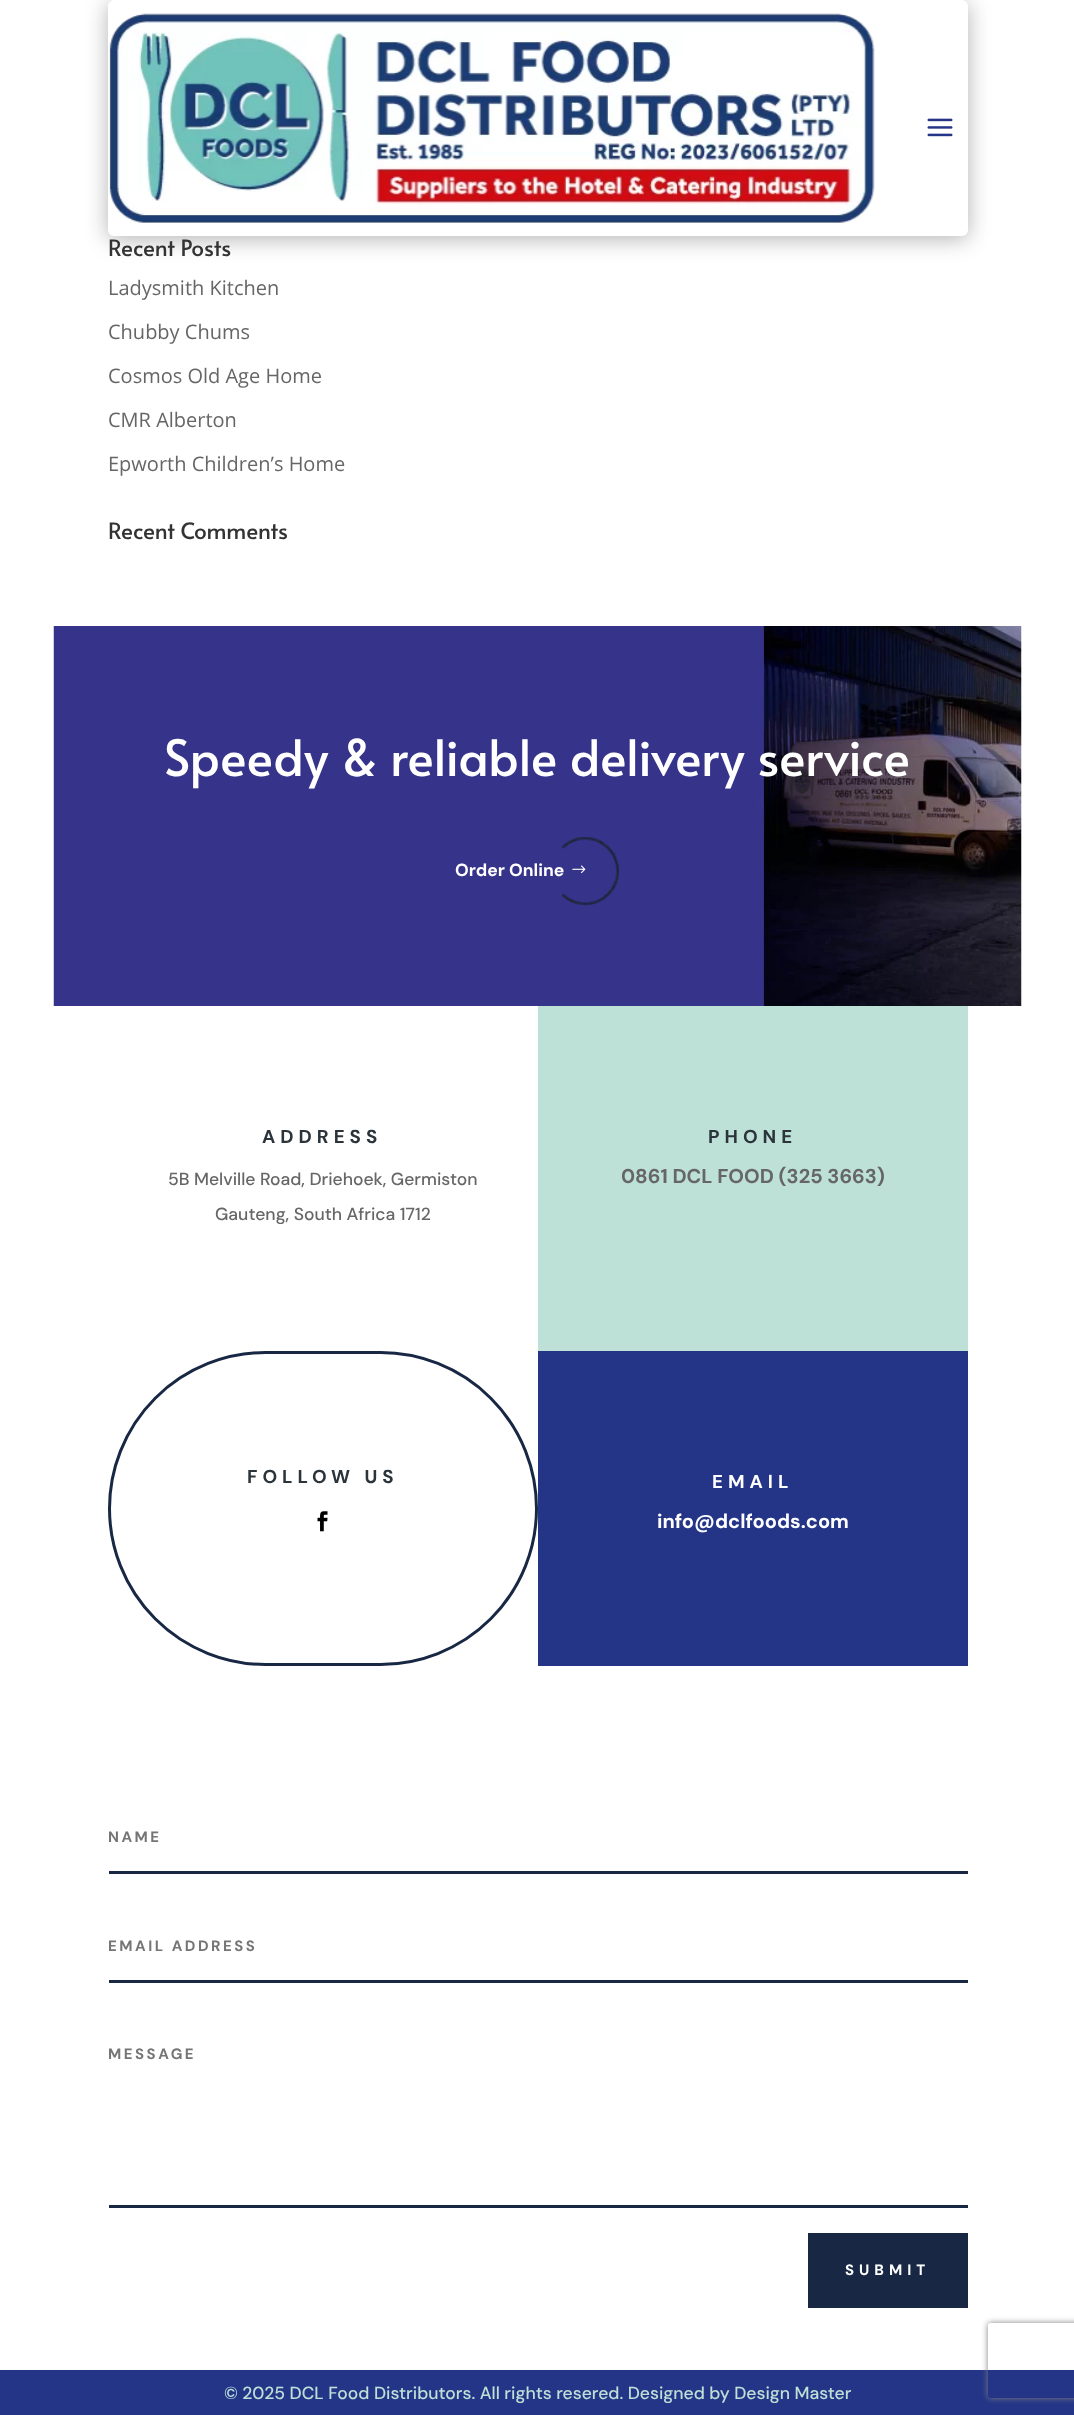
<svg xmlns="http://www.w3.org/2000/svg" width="1074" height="2415">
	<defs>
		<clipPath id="clip1"><path d="M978 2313H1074V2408H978ZM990.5 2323H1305.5C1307 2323 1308 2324 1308 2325.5V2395.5C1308 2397 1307 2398 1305.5 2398H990.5C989 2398 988 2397 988 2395.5V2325.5C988 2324 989 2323 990.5 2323Z" clip-rule="evenodd" /></clipPath>
	</defs>
	<rect width="100%" height="100%" fill="#FFFFFF" />
	<rect x="108" y="3" width="860" height="236" rx="6" fill="#000000" fill-opacity="0.3" filter="blur(11px)" />
	<rect x="108" y="0" width="860" height="236" rx="6" fill="#FFFFFF" />
	<image x="109" y="13" width="766" height="210" href="assets/img1.png" />
	<image x="927" y="118" width="26" height="19" href="assets/img2.png" />
	<text x="108" y="256" font-family="Alata" font-size="22.5" fill="#333333">Recent Posts</text>
	<g font-family="Open Sans" font-size="20" fill="#666666">
		<text x="108" y="295">Ladysmith Kitchen</text>
		<text x="108" y="339">Chubby Chums</text>
		<text x="108" y="383">Cosmos Old Age Home</text>
		<text x="108" y="427">CMR Alberton</text>
		<text x="108" y="471">Epworth Children’s Home</text>
	</g>
	<text x="108" y="539" font-family="Alata" font-size="22.5" fill="#333333">Recent Comments</text>
	<image x="53" y="626" width="969" height="380" href="assets/img3.png" />
	<text x="164" y="776" font-family="Alata" font-size="50" fill="#FFFFFF">Speedy &amp; reliable delivery service</text>
	<image x="561" y="837" width="58" height="69" href="assets/img4.png" />
	<text x="455" y="876" font-family="DM Sans" font-size="17.5" font-weight="700" fill="#FFFFFF">Order Online</text>
	<image x="572" y="865" width="14" height="9" href="assets/img5.png" />
	<text x="262" y="1143" font-family="DM Sans" font-size="18.75" font-weight="700" letter-spacing="5" fill="#2B343B">ADDRESS</text>
	<g font-family="DM Sans" font-size="17.5" font-weight="500" fill="#666666">
		<text x="168" y="1185">5B Melville Road, Driehoek, Germiston</text>
		<text x="215" y="1220">Gauteng, South Africa 1712</text>
	</g>
	<rect x="538" y="1006" width="430" height="345" fill="#BDE0D7" />
	<text x="708" y="1143" font-family="DM Sans" font-size="18.75" font-weight="700" letter-spacing="5" fill="#2B343B">PHONE</text>
	<text x="621" y="1183" font-family="DM Sans" font-size="20" font-weight="700" fill="#666666">0861 DCL FOOD (325 3663)</text>
	<rect x="109.5" y="1352.5" width="427" height="312" rx="156" fill="none" stroke="#182844" stroke-width="3" />
	<text x="247" y="1483" font-family="DM Sans" font-size="18.75" font-weight="700" letter-spacing="5" fill="#2B343B">FOLLOW US</text>
	<image x="317" y="1511" width="11" height="21" href="assets/img6.png" />
	<rect x="538" y="1351" width="430" height="315" fill="#243588" />
	<text x="712" y="1488" font-family="DM Sans" font-size="18.75" font-weight="700" letter-spacing="5" fill="#FFFFFF">EMAIL</text>
	<text x="657" y="1528" font-family="DM Sans" font-size="20" font-weight="700" fill="#FFFFFF">info@dclfoods.com</text>
	<rect x="109" y="1871" width="859" height="3" fill="#182844" />
	<text x="108" y="1842" font-family="DM Sans" font-size="15" font-weight="700" letter-spacing="2.5" fill="#757575">NAME</text>
	<rect x="109" y="1980" width="859" height="3" fill="#182844" />
	<text x="108" y="1951" font-family="DM Sans" font-size="15" font-weight="700" letter-spacing="2.5" fill="#757575">EMAIL ADDRESS</text>
	<rect x="109" y="2205" width="859" height="3" fill="#182844" />
	<text x="108" y="2059" font-family="DM Sans" font-size="15" font-weight="700" letter-spacing="2.5" fill="#757575">MESSAGE</text>
	<rect x="808" y="2233" width="160" height="75" fill="#182844" />
	<text x="845" y="2275" font-family="DM Sans" font-size="15" font-weight="700" letter-spacing="5" fill="#FFFFFF">SUBMIT</text>
	<rect x="0" y="2370" width="1074" height="45" fill="#243588" />
	<text x="224" y="2399" font-family="DM Sans" font-size="17.5" font-weight="500" fill="#BDE0D7">© 2025 DCL Food Distributors. All rights resered. Designed by Design Master</text>
	<g clip-path="url(#clip1)">
		<rect x="988" y="2323" width="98" height="75" rx="2.5" fill="#808080" filter="blur(3px)" />
	</g>
</svg>
